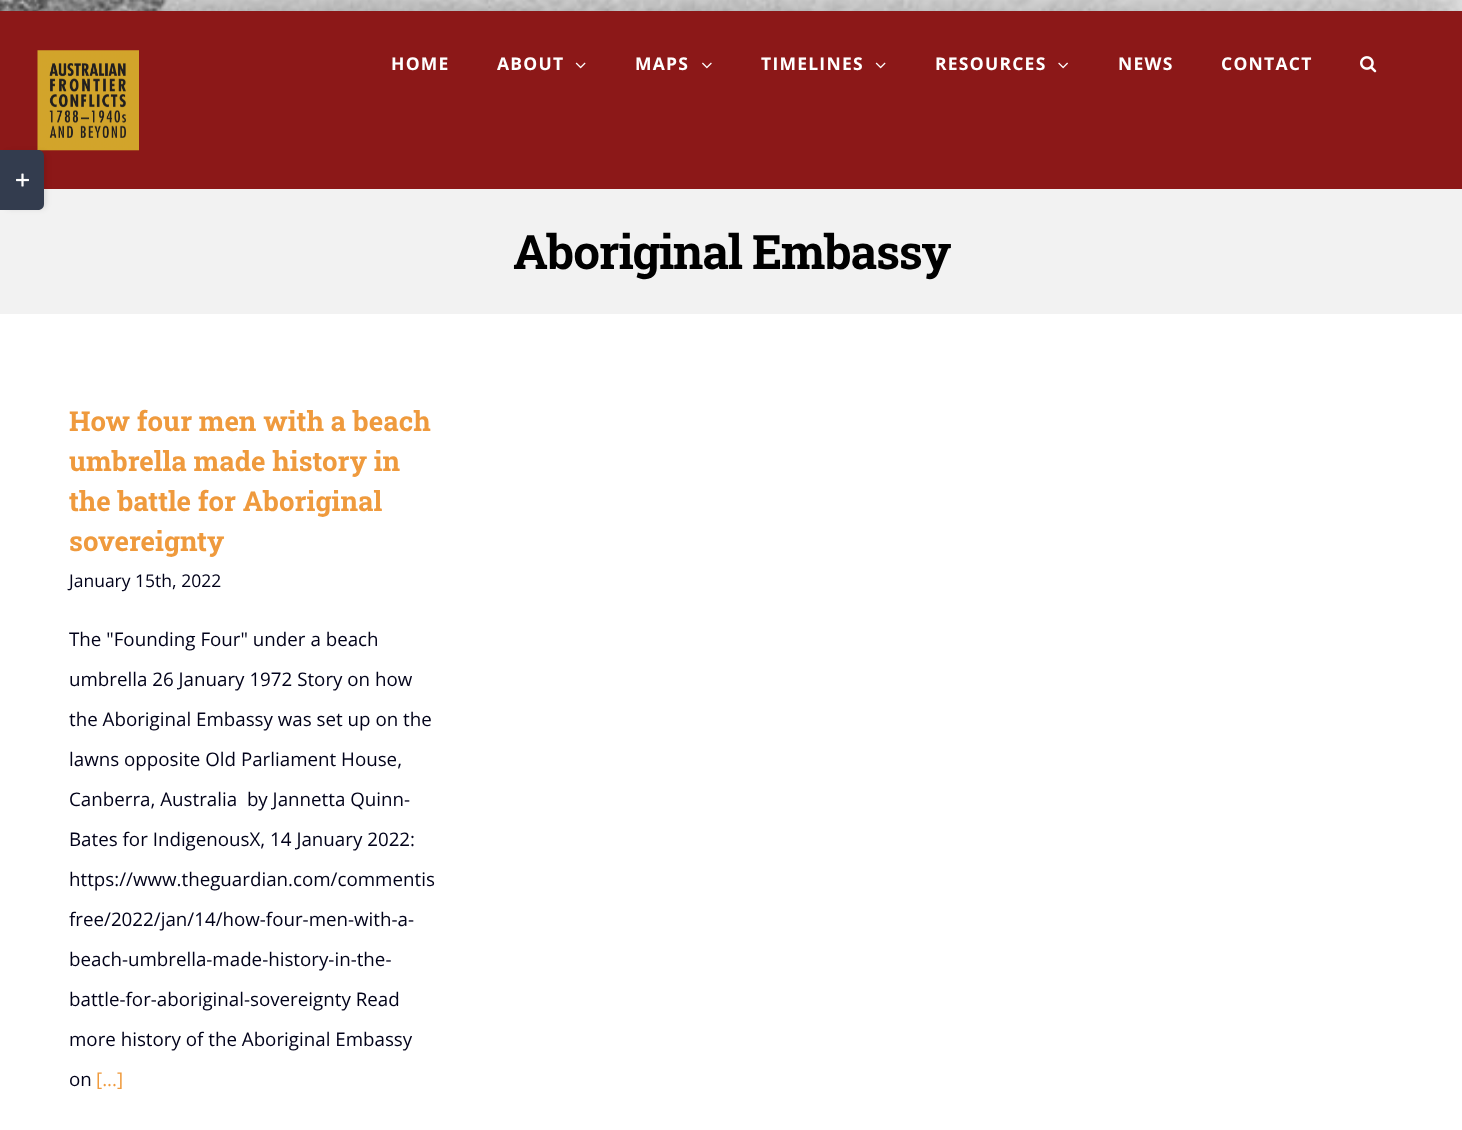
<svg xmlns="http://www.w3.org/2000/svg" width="1462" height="1130">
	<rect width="100%" height="100%" fill="#FFFFFF" />
	<image x="0" y="0" width="1462" height="11" href="assets/img1.png" />
	<rect x="-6" y="5" width="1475" height="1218" fill="#000000" fill-opacity="0.35" filter="blur(31px)" />
	<rect x="0" y="11" width="1462" height="178" fill="#8C1818" />
	<image x="37" y="50" width="102" height="101" href="assets/img2.png" />
	<g font-family="Open Sans" font-size="17.5" font-weight="700" letter-spacing="1.25" fill="#FFFFFF">
		<text x="391" y="70">HOME</text>
		<text x="497" y="70">ABOUT</text>
	</g>
	<image x="575" y="62" width="11" height="7" href="assets/img3.png" />
	<text x="635" y="70" font-family="Open Sans" font-size="17.5" font-weight="700" letter-spacing="1.25" fill="#FFFFFF">MAPS</text>
	<image x="702" y="62" width="10" height="7" href="assets/img4.png" />
	<text x="761" y="70" font-family="Open Sans" font-size="17.5" font-weight="700" letter-spacing="1.25" fill="#FFFFFF">TIMELINES</text>
	<image x="875" y="62" width="11" height="7" href="assets/img3.png" />
	<text x="935" y="70" font-family="Open Sans" font-size="17.5" font-weight="700" letter-spacing="1.25" fill="#FFFFFF">RESOURCES</text>
	<image x="1058" y="62" width="10" height="7" href="assets/img5.png" />
	<g font-family="Open Sans" font-size="17.5" font-weight="700" letter-spacing="1.25" fill="#FFFFFF">
		<text x="1118" y="70">NEWS</text>
		<text x="1221" y="70">CONTACT</text>
	</g>
	<image x="1360" y="56" width="17" height="17" href="assets/img6.png" />
	<rect x="0" y="189" width="1462" height="125" fill="#F2F2F2" />
	<rect x="6" y="153" width="39" height="55" rx="4" fill="#000000" fill-opacity="0.14" filter="blur(3px)" />
	<path d="M0 150H38C41.5 150 44 152.5 44 156V204C44 207.5 41.5 210 38 210H0Z" fill="#333C4E" />
	<image x="16" y="173" width="13" height="14" href="assets/img7.png" />
	<text x="513" y="269" font-family="Roboto Slab" font-size="47.5" font-weight="700" letter-spacing="-1.25" fill="#000000">Aboriginal Embassy</text>
	<rect x="0" y="314" width="1462" height="816" fill="#FFFFFF" />
	<g font-family="Roboto Slab" font-size="27.5" font-weight="700" fill="#EF9A3D">
		<text x="69" y="431">How four men with a beach</text>
		<text x="69" y="471">umbrella made history in</text>
		<text x="69" y="511">the battle for Aboriginal</text>
		<text x="69" y="551">sovereignty</text>
	</g>
	<text x="69" y="587" font-family="Open Sans" font-size="17.5" fill="#000119">January 15th, 2022</text>
	<g font-family="Open Sans" font-size="18.75" fill="#000119">
		<text x="69" y="646">The "Founding Four" under a beach</text>
		<text x="69" y="686">umbrella 26 January 1972 Story on how</text>
		<text x="69" y="726">the Aboriginal Embassy was set up on the</text>
		<text x="69" y="766">lawns opposite Old Parliament House,</text>
		<text x="69" y="806" xml:space="preserve">Canberra, Australia  by Jannetta Quinn-</text>
		<text x="69" y="846">Bates for IndigenousX, 14 January 2022:</text>
		<text x="69" y="886">https://www.theguardian.com/commentis</text>
		<text x="69" y="926">free/2022/jan/14/how-four-men-with-a-</text>
		<text x="69" y="966">beach-umbrella-made-history-in-the-</text>
		<text x="69" y="1006">battle-for-aboriginal-sovereignty Read</text>
		<text x="69" y="1046">more history of the Aboriginal Embassy</text>
		<text x="69" y="1086">on</text>
	</g>
	<text x="96" y="1086" font-family="Open Sans" font-size="18.75" fill="#EF9A3D">[...]</text>
</svg>
